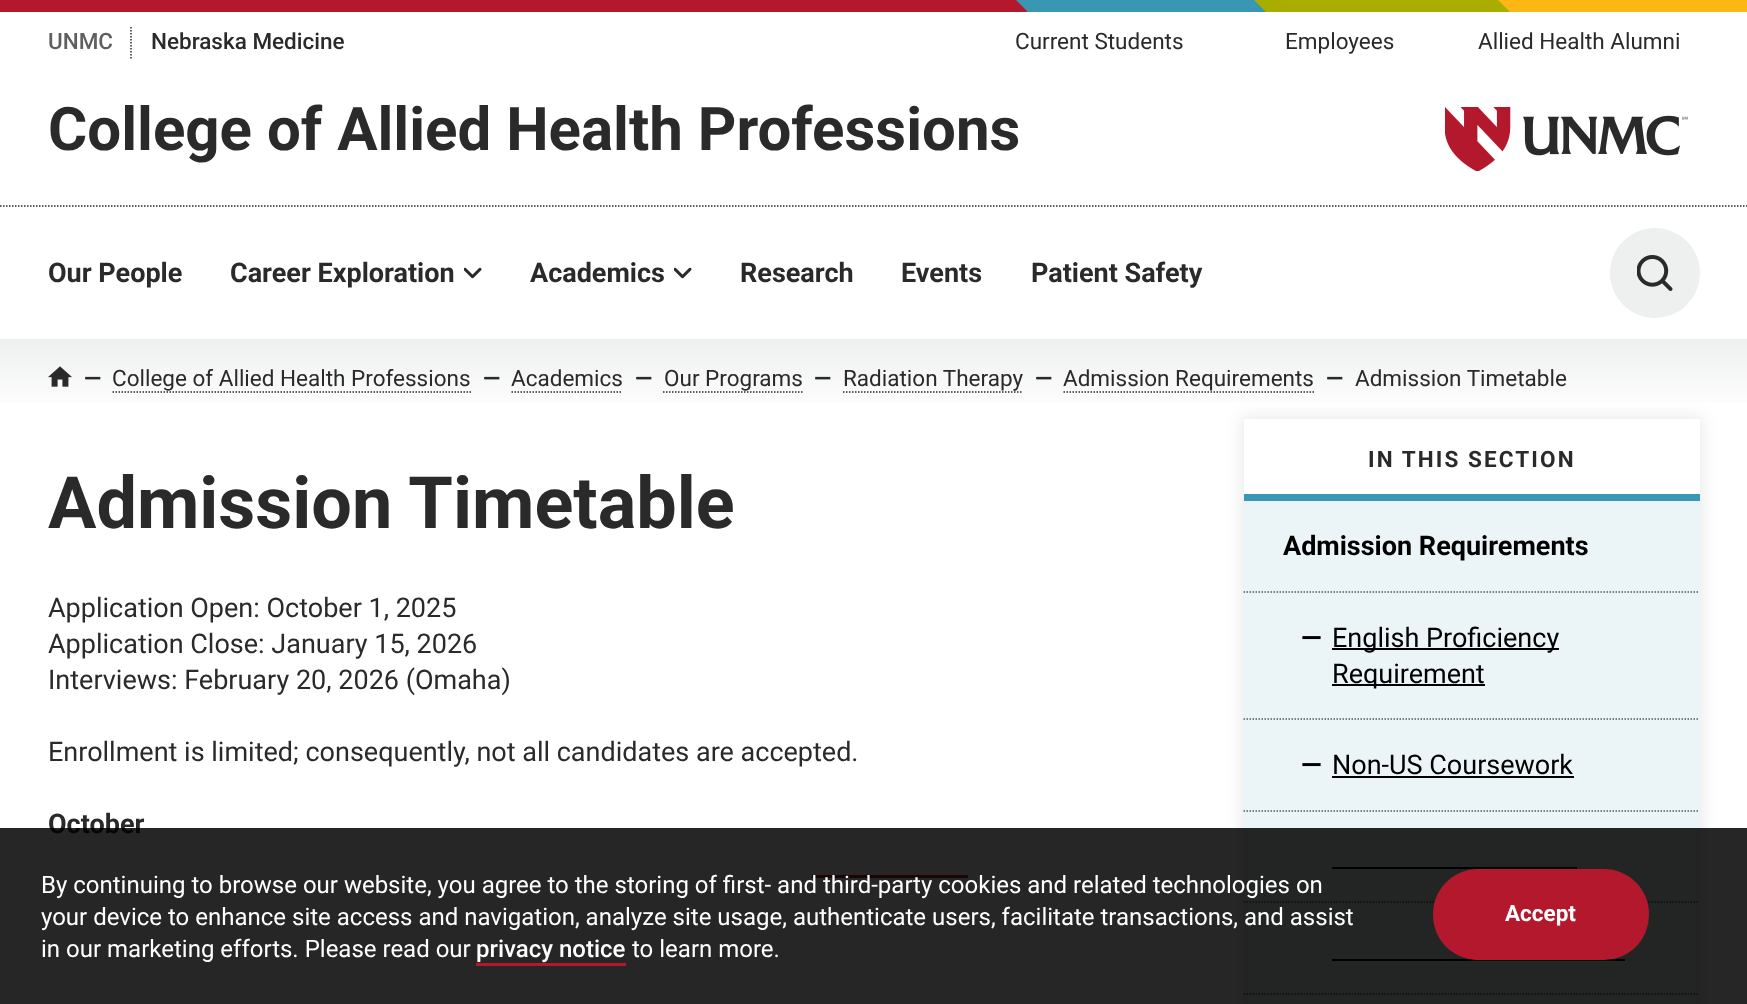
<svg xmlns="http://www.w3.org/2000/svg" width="1747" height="1004">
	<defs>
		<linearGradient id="g1" gradientUnits="userSpaceOnUse" x1="874" y1="339" x2="874" y2="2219"><stop offset="0" stop-color="#EEEFEF" /><stop offset="0.04" stop-color="#FFFFFF" /></linearGradient>
	</defs>
	<rect width="100%" height="100%" fill="#FFFFFF" />
	<rect x="0" y="0" width="1028" height="12" fill="#B4182D" />
	<path d="M1016 0L1028 12H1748V0Z" fill="#3A97B4" />
	<path d="M1254 0L1266 12H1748V0Z" fill="#A9AD00" />
	<path d="M1498 0L1510 12H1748V0Z" fill="#FDB714" />
	<path d="M131 27V58.5" fill="none" stroke="#2A2A2A" stroke-width="1.5" stroke-dasharray="1.5 1.5" />
	<text x="48" y="49" font-family="Roboto" font-size="22.5" font-weight="500" fill="#5F5F5F">UNMC</text>
	<text x="151" y="49" font-family="Roboto" font-size="22.5" font-weight="500" fill="#2A2A2A">Nebraska Medicine</text>
	<g font-family="Roboto" font-size="22.5" fill="#2A2A2A">
		<text x="1015" y="49">Current Students</text>
		<text x="1285" y="49">Employees</text>
		<text x="1478" y="49">Allied Health Alumni</text>
	</g>
	<text x="48" y="150" font-family="Roboto" font-size="60" font-weight="700" fill="#2A2A2A">College of Allied Health Professions</text>
	<image x="1445" y="107" width="243" height="64" href="assets/img1.png" />
	<path d="M0 206H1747.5" fill="none" stroke="#2A2A2A" stroke-width="1.5" stroke-dasharray="1.5 1.5" />
	<text x="48" y="282" font-family="Roboto" font-size="27" font-weight="700" fill="#2A2A2A">Our People</text>
	<image x="464" y="267" width="18" height="12" href="assets/img2.png" />
	<text x="230" y="282" font-family="Roboto" font-size="27" font-weight="700" fill="#2A2A2A">Career Exploration</text>
	<image x="674" y="267" width="18" height="12" href="assets/img2.png" />
	<g font-family="Roboto" font-size="27" font-weight="700" fill="#2A2A2A">
		<text x="530" y="282">Academics</text>
		<text x="740" y="282">Research</text>
		<text x="901" y="282">Events</text>
		<text x="1031" y="282">Patient Safety</text>
	</g>
	<circle cx="1655" cy="273" r="45" fill="#EEEFEF" />
	<image x="1637" y="255" width="36" height="36" href="assets/img3.png" />
	<rect x="0" y="339" width="1747" height="64" fill="url(#g1)" />
	<image x="48" y="366" width="24" height="21" href="assets/img4.png" />
	<text x="84" y="386" font-family="Roboto" font-size="22.5" font-weight="700" fill="#2A2A2A">—</text>
	<text x="112" y="386" font-family="Roboto" font-size="22.5" fill="#2A2A2A">College of Allied Health Professions</text>
	<path d="M112.5 392H471" fill="none" stroke="#2A2A2A" stroke-width="1.5" stroke-dasharray="1.5 1.5" />
	<text x="483" y="386" font-family="Roboto" font-size="22.5" font-weight="700" fill="#2A2A2A">—</text>
	<text x="511" y="386" font-family="Roboto" font-size="22.5" fill="#2A2A2A">Academics</text>
	<path d="M511.5 392H622.5" fill="none" stroke="#2A2A2A" stroke-width="1.5" stroke-dasharray="1.5 1.5" />
	<text x="635" y="386" font-family="Roboto" font-size="22.5" font-weight="700" fill="#2A2A2A">—</text>
	<text x="664" y="386" font-family="Roboto" font-size="22.5" fill="#2A2A2A">Our Programs</text>
	<path d="M663 392H802.5" fill="none" stroke="#2A2A2A" stroke-width="1.5" stroke-dasharray="1.5 1.5" />
	<text x="814" y="386" font-family="Roboto" font-size="22.5" font-weight="700" fill="#2A2A2A">—</text>
	<text x="843" y="386" font-family="Roboto" font-size="22.5" fill="#2A2A2A">Radiation Therapy</text>
	<path d="M843 392H1023" fill="none" stroke="#2A2A2A" stroke-width="1.5" stroke-dasharray="1.5 1.5" />
	<text x="1035" y="386" font-family="Roboto" font-size="22.5" font-weight="700" fill="#2A2A2A">—</text>
	<text x="1063" y="386" font-family="Roboto" font-size="22.5" fill="#2A2A2A">Admission Requirements</text>
	<path d="M1063.5 392H1314" fill="none" stroke="#2A2A2A" stroke-width="1.5" stroke-dasharray="1.5 1.5" />
	<text x="1326" y="386" font-family="Roboto" font-size="22.5" font-weight="700" fill="#2A2A2A">—</text>
	<text x="1355" y="386" font-family="Roboto" font-size="22.5" fill="#2A2A2A">Admission Timetable</text>
	<text x="48" y="528" font-family="Roboto" font-size="72" font-weight="700" fill="#2A2A2A">Admission Timetable</text>
	<rect x="1241" y="416" width="462" height="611" fill="#000000" fill-opacity="0.08" filter="blur(7.5px)" />
	<rect x="1244" y="419" width="456" height="75" fill="#FFFFFF" />
	<text x="1368" y="467" font-family="Roboto" font-size="22.5" font-weight="700" letter-spacing="2.1" fill="#2A2A2A">IN THIS SECTION</text>
	<rect x="1244" y="494" width="456" height="7" fill="#3A97B4" />
	<rect x="1244" y="501" width="456" height="503" fill="#EBF5F8" />
	<path d="M1243.5 592H1699.5" fill="none" stroke="#54585A" stroke-width="1.5" stroke-dasharray="1.5 1.5" />
	<text x="1283" y="555" font-family="Roboto" font-size="27" font-weight="700" fill="#000000">Admission Requirements</text>
	<path d="M1243.5 719H1699.5" fill="none" stroke="#54585A" stroke-width="1.5" stroke-dasharray="1.5 1.5" />
	<text x="1301" y="647" font-family="Roboto" font-size="27" font-weight="700" fill="#000000">—</text>
	<rect x="1332" y="648" width="227" height="2" fill="#000000" />
	<text x="1332" y="647" font-family="Roboto" font-size="27" fill="#000000">English Proficiency</text>
	<rect x="1332" y="684" width="153" height="2" fill="#000000" />
	<text x="1332" y="683" font-family="Roboto" font-size="27" fill="#000000">Requirement</text>
	<path d="M1243.5 811H1699.5" fill="none" stroke="#54585A" stroke-width="1.5" stroke-dasharray="1.5 1.5" />
	<text x="1301" y="774" font-family="Roboto" font-size="27" font-weight="700" fill="#000000">—</text>
	<text x="1332" y="774" font-family="Roboto" font-size="27" fill="#000000">Non-US Coursework</text>
	<rect x="1332" y="776" width="242" height="2" fill="#000000" />
	<path d="M1243.5 902H1699.5" fill="none" stroke="#54585A" stroke-width="1.5" stroke-dasharray="1.5 1.5" />
	<rect x="1332" y="867" width="245" height="2" fill="#000000" />
	<path d="M1243.5 994H1699.5" fill="none" stroke="#54585A" stroke-width="1.5" stroke-dasharray="1.5 1.5" />
	<rect x="1332" y="959" width="293" height="2" fill="#000000" />
	<g font-family="Roboto" font-size="27" fill="#2A2A2A">
		<text x="48" y="617">Application Open: October 1, 2025</text>
		<text x="48" y="653">Application Close: January 15, 2026</text>
		<text x="48" y="689">Interviews: February 20, 2026 (Omaha)</text>
		<text x="48" y="761">Enrollment is limited; consequently, not all candidates are accepted.</text>
	</g>
	<text x="48" y="833" font-family="Roboto" font-size="27" font-weight="700" fill="#2A2A2A">October</text>
	<rect x="812" y="875" width="156" height="3" fill="#B4182D" />
	<rect x="0" y="828" width="1747" height="176" fill="#000000" fill-opacity="0.85" />
	<g font-family="Roboto" font-size="24" fill="#FFFFFF">
		<text x="41" y="893">By continuing to browse our website, you agree to the storing of first- and third-party cookies and related technologies on</text>
		<text x="41" y="925">your device to enhance site access and navigation, analyze site usage, authenticate users, facilitate transactions, and assist</text>
		<text x="41" y="957">in our marketing efforts. Please read our</text>
	</g>
	<text x="476" y="957" font-family="Roboto" font-size="24" font-weight="500" fill="#FFFFFF">privacy notice</text>
	<rect x="476" y="963" width="150" height="3" fill="#B4182D" />
	<text x="632" y="957" font-family="Roboto" font-size="24" fill="#FFFFFF">to learn more.</text>
	<rect x="1433" y="869" width="216" height="91" rx="45" fill="#B4182D" />
	<text x="1505" y="921" font-family="Roboto" font-size="22.5" font-weight="700" fill="#FFFFFF">Accept</text>
</svg>
